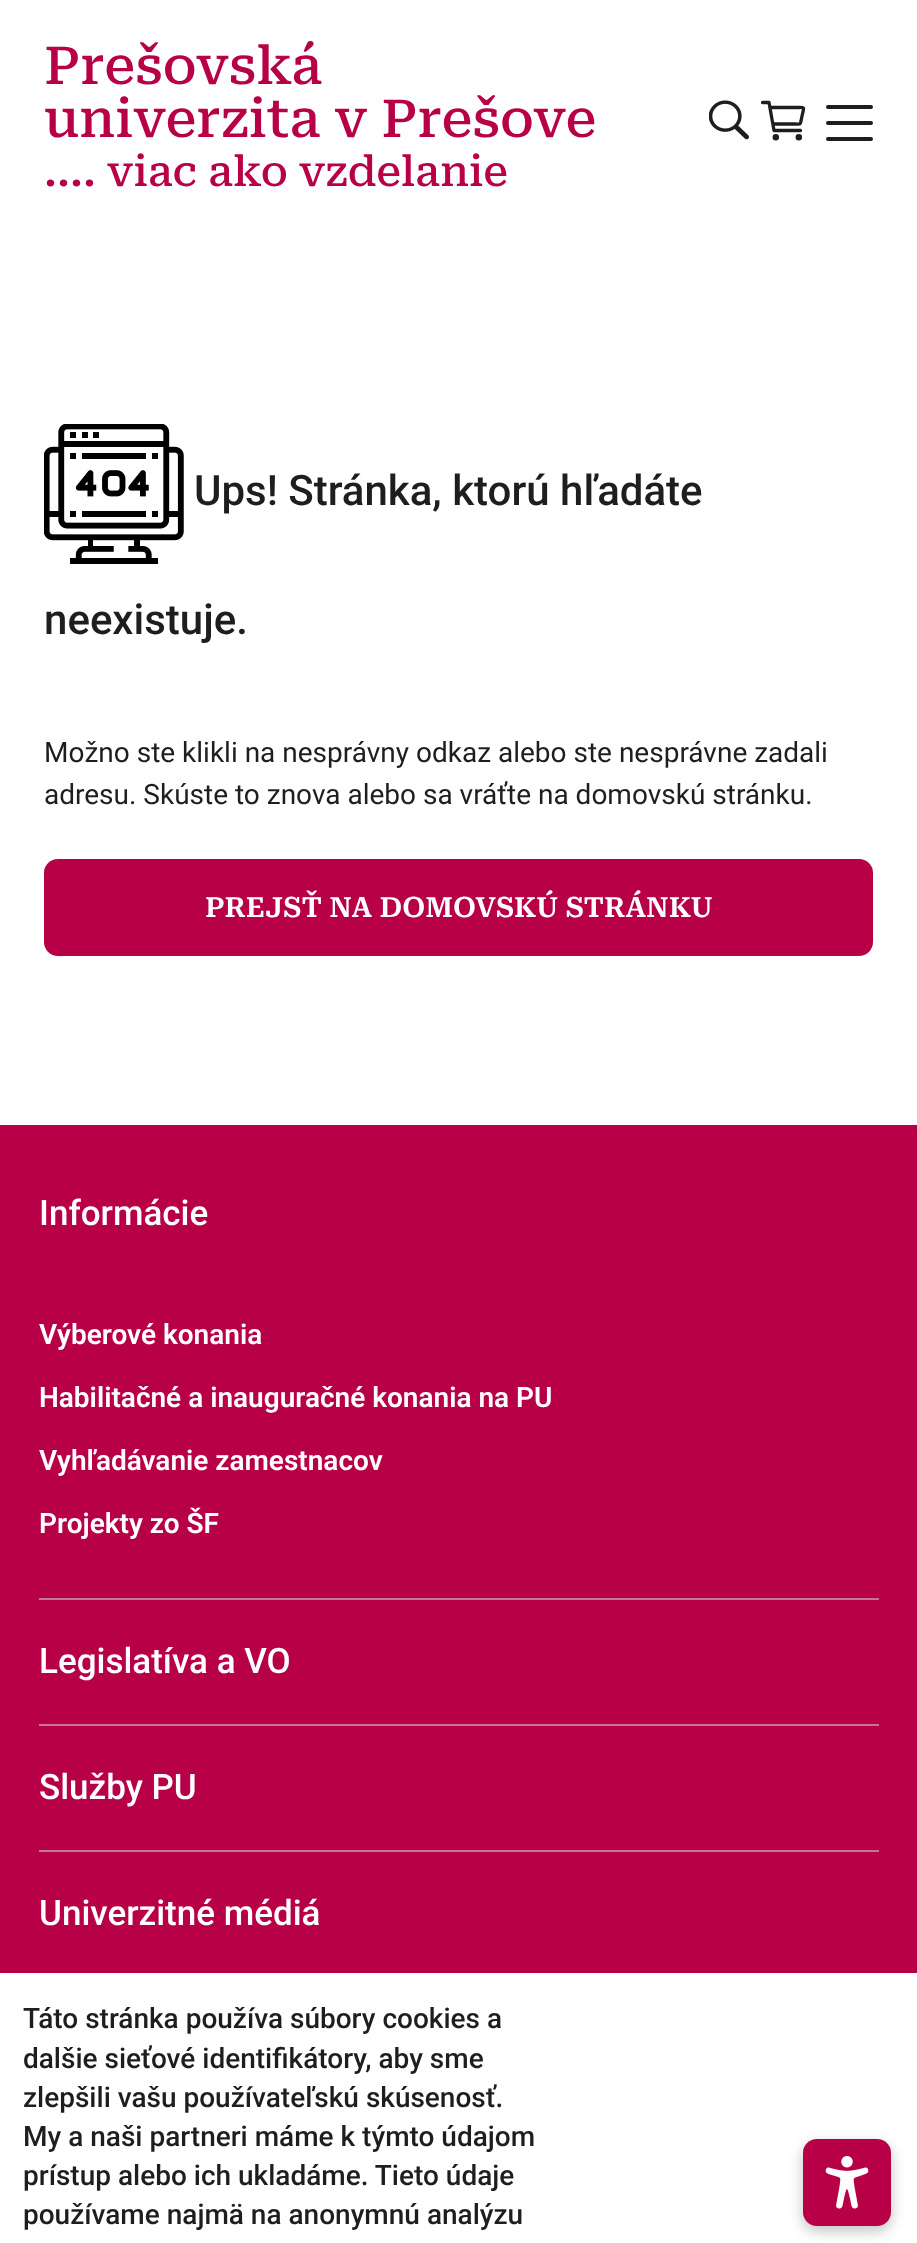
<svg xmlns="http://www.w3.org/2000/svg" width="917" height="2243">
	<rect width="100%" height="100%" fill="#FFFFFF" />
	<g font-family="Roboto Serif" font-size="52.5" font-weight="500" fill="#B80047">
		<text x="44" y="84">Prešovská</text>
		<text x="44" y="137">univerzita v Prešove</text>
	</g>
	<text x="44" y="186" font-family="Roboto Serif" font-size="42" font-weight="500" fill="#B80047">.... viac ako vzdelanie</text>
	<image x="709" y="100" width="40" height="40" href="assets/img1.png" />
	<path d="M762.5 102.5H769L774 130.5H800.5M774 124H795.5C800.5 124 800 125 801 121L802 116C804 106.5 805.5 107.5 797.5 107.5H771" fill="none" stroke="#1E1E1E" stroke-width="3.3" stroke-linecap="round" stroke-linejoin="round" />
	<circle cx="775.8" cy="137.2" r="1.6" fill="none" stroke="#1E1E1E" stroke-width="3.3" />
	<circle cx="798.8" cy="137.2" r="1.6" fill="none" stroke="#1E1E1E" stroke-width="3.3" />
	<rect x="826" y="105" width="47" height="4" rx="2" fill="#1E1E1E" />
	<rect x="826" y="121" width="47" height="4" rx="2" fill="#1E1E1E" />
	<rect x="826" y="137" width="47" height="4" rx="2" fill="#1E1E1E" />
	<image x="44" y="424" width="140" height="140" href="assets/img2.png" />
	<g font-family="Roboto" font-size="42" font-weight="500" fill="#1E1E1E">
		<text x="194" y="505">Ups! Stránka, ktorú hľadáte</text>
		<text x="44" y="634">neexistuje.</text>
	</g>
	<g font-family="Roboto" font-size="28" fill="#1E1E1E">
		<text x="44" y="762">Možno ste klikli na nesprávny odkaz alebo ste nesprávne zadali</text>
		<text x="44" y="804">adresu. Skúste to znova alebo sa vráťte na domovskú stránku.</text>
	</g>
	<rect x="44" y="859" width="829" height="97" rx="14" fill="#B80047" />
	<text x="205" y="917" font-family="Roboto Serif" font-size="28" font-weight="600" fill="#FFFFFF">PREJSŤ NA DOMOVSKÚ STRÁNKU</text>
	<rect x="0" y="1125" width="917" height="848" fill="#B80047" />
	<rect x="39" y="1598" width="840" height="2" fill="#C27794" />
	<text x="39" y="1225" font-family="Roboto" font-size="35" font-weight="500" fill="#FFFFFF">Informácie</text>
	<g font-family="Roboto" font-size="28" font-weight="600" fill="#FFFFFF">
		<text x="39" y="1344">Výberové konania</text>
		<text x="39" y="1407">Habilitačné a inauguračné konania na PU</text>
		<text x="39" y="1470">Vyhľadávanie zamestnacov</text>
		<text x="39" y="1533">Projekty zo ŠF</text>
	</g>
	<rect x="39" y="1724" width="840" height="2" fill="#C27794" />
	<text x="39" y="1673" font-family="Roboto" font-size="35" font-weight="500" fill="#FFFFFF">Legislatíva a VO</text>
	<rect x="39" y="1850" width="840" height="2" fill="#C27794" />
	<g font-family="Roboto" font-size="35" font-weight="500" fill="#FFFFFF">
		<text x="39" y="1799">Služby PU</text>
		<text x="39" y="1925">Univerzitné médiá</text>
	</g>
	<rect x="803" y="2144" width="88" height="87" rx="14" fill="#000000" fill-opacity="0.24" filter="blur(7px)" />
	<rect x="803" y="2139" width="88" height="87" rx="14" fill="#B80047" />
	<image x="825" y="2156" width="44" height="53" href="assets/img3.png" />
	<g font-family="Roboto" font-size="28" font-weight="500" fill="#1E1E1E">
		<text x="23" y="2028">Táto stránka používa súbory cookies a</text>
		<text x="23" y="2068">dalšie sieťové identifikátory, aby sme</text>
		<text x="23" y="2107">zlepšili vašu používateľskú skúsenosť.</text>
		<text x="23" y="2146">My a naši partneri máme k týmto údajom</text>
		<text x="23" y="2185">prístup alebo ich ukladáme. Tieto údaje</text>
		<text x="23" y="2224">používame najmä na anonymnú analýzu</text>
	</g>
</svg>
